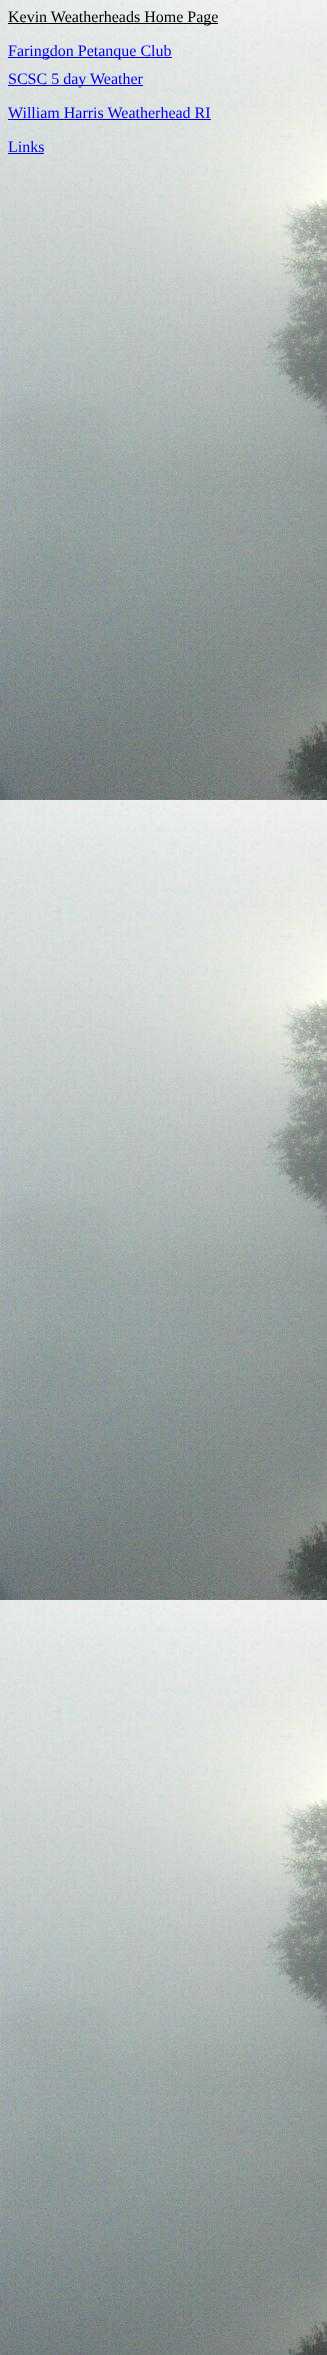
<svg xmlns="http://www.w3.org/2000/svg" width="327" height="2355">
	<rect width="100%" height="100%" fill="#FFFFFF" />
	<image x="0" y="0" width="327" height="2355" href="assets/img1.png" />
	<rect x="8" y="23" width="210" height="1" fill="#000000" />
	<text x="8" y="22" font-family="Liberation Serif" font-size="16" fill="#000000">Kevin Weatherheads Home Page</text>
	<rect x="8" y="57" width="164" height="1" fill="#0000EE" />
	<text x="8" y="56" font-family="Liberation Serif" font-size="16" fill="#0000EE">Faringdon Petanque Club</text>
	<rect x="8" y="85" width="135" height="1" fill="#0000EE" />
	<g font-family="Liberation Serif" font-size="16" fill="#0000EE">
		<text x="8" y="84">SCSC 5 day Weather</text>
		<text x="8" y="118">William Harris Weatherhead RI</text>
	</g>
	<rect x="8" y="119" width="203" height="1" fill="#0000EE" />
	<text x="8" y="152" font-family="Liberation Serif" font-size="16" fill="#0000EE">Links</text>
	<rect x="8" y="153" width="36" height="1" fill="#0000EE" />
</svg>
